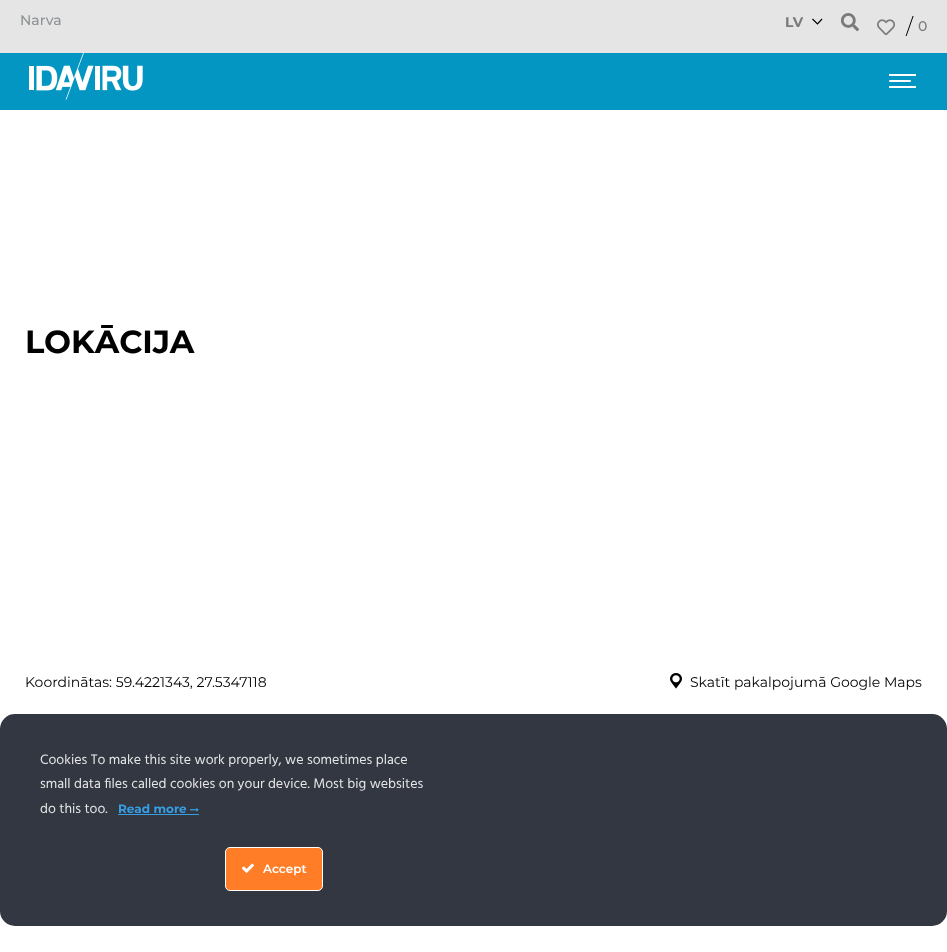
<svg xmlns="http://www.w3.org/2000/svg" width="947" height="952">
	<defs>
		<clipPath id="clip1"><rect x="903" y="16" width="30" height="20" /></clipPath>
	</defs>
	<rect width="100%" height="100%" fill="#FFFFFF" />
	<rect x="0" y="53" width="947" height="57" fill="#0396C2" />
	<rect x="0" y="0" width="947" height="53" fill="#E5E5E5" />
	<text x="20" y="25" font-family="Montserrat" font-size="14" font-weight="500" fill="#8F9396">Narva</text>
	<text x="785" y="27" font-family="Montserrat" font-size="14" font-weight="700" fill="#7A7A7A">LV</text>
	<path d="M812.5 19L817.5 24L822 19" fill="none" stroke="#000000" stroke-width="1.2" />
	<image x="840" y="13" width="19" height="19" href="assets/img1.png" />
	<image x="877" y="19" width="18" height="17" href="assets/img2.png" />
	<g clip-path="url(#clip1)">
		<path d="M917 5L901 50.5" fill="none" stroke="#000000" />
	</g>
	<text x="918" y="31" font-family="Montserrat" font-size="14" font-weight="500" fill="#7A7A7A">0</text>
	<image x="29" y="53" width="114" height="47" href="assets/img3.png" />
	<rect x="889" y="80" width="22" height="2" rx="1" fill="#FFFFFF" />
	<rect x="889" y="74" width="27" height="2" fill="#FFFFFF" />
	<rect x="889" y="86" width="27" height="2" fill="#FFFFFF" />
	<text x="25" y="353" font-family="Montserrat" font-size="32" font-weight="700" fill="#000000">LOKĀCIJA</text>
	<text x="25" y="687" font-family="Montserrat" font-size="14" fill="#000000">Koordinātas: 59.4221343, 27.5347118</text>
	<image x="670" y="673" width="12" height="16" href="assets/img4.png" />
	<text x="690" y="687" font-family="Montserrat" font-size="14" fill="#000000">Skatīt pakalpojumā Google Maps</text>
	<rect x="0" y="714" width="947" height="212" rx="15" fill="#323742" />
	<g font-family="Hind" font-size="14" fill="#E5E5E5">
		<text x="40" y="764">Cookies To make this site work properly, we sometimes place</text>
		<text x="40" y="788">small data files called cookies on your device. Most big websites</text>
		<text x="40" y="813">do this too.</text>
	</g>
	<text x="118" y="813" font-family="'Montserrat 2'" font-size="12" font-weight="700" fill="#369EE3">Read more</text>
	<rect x="118" y="814" width="81" height="1" fill="#369EE3" />
	<image x="190" y="807" width="9" height="5" href="assets/img5.png" />
	<rect x="225.5" y="847.5" width="97" height="43" rx="4.5" fill="#FF7D27" stroke="#FFFFFF" />
	<image x="242" y="863" width="12" height="10" href="assets/img6.png" />
	<text x="263" y="873" font-family="Montserrat" font-size="12" font-weight="600" fill="#FFFFFF">Accept</text>
</svg>
